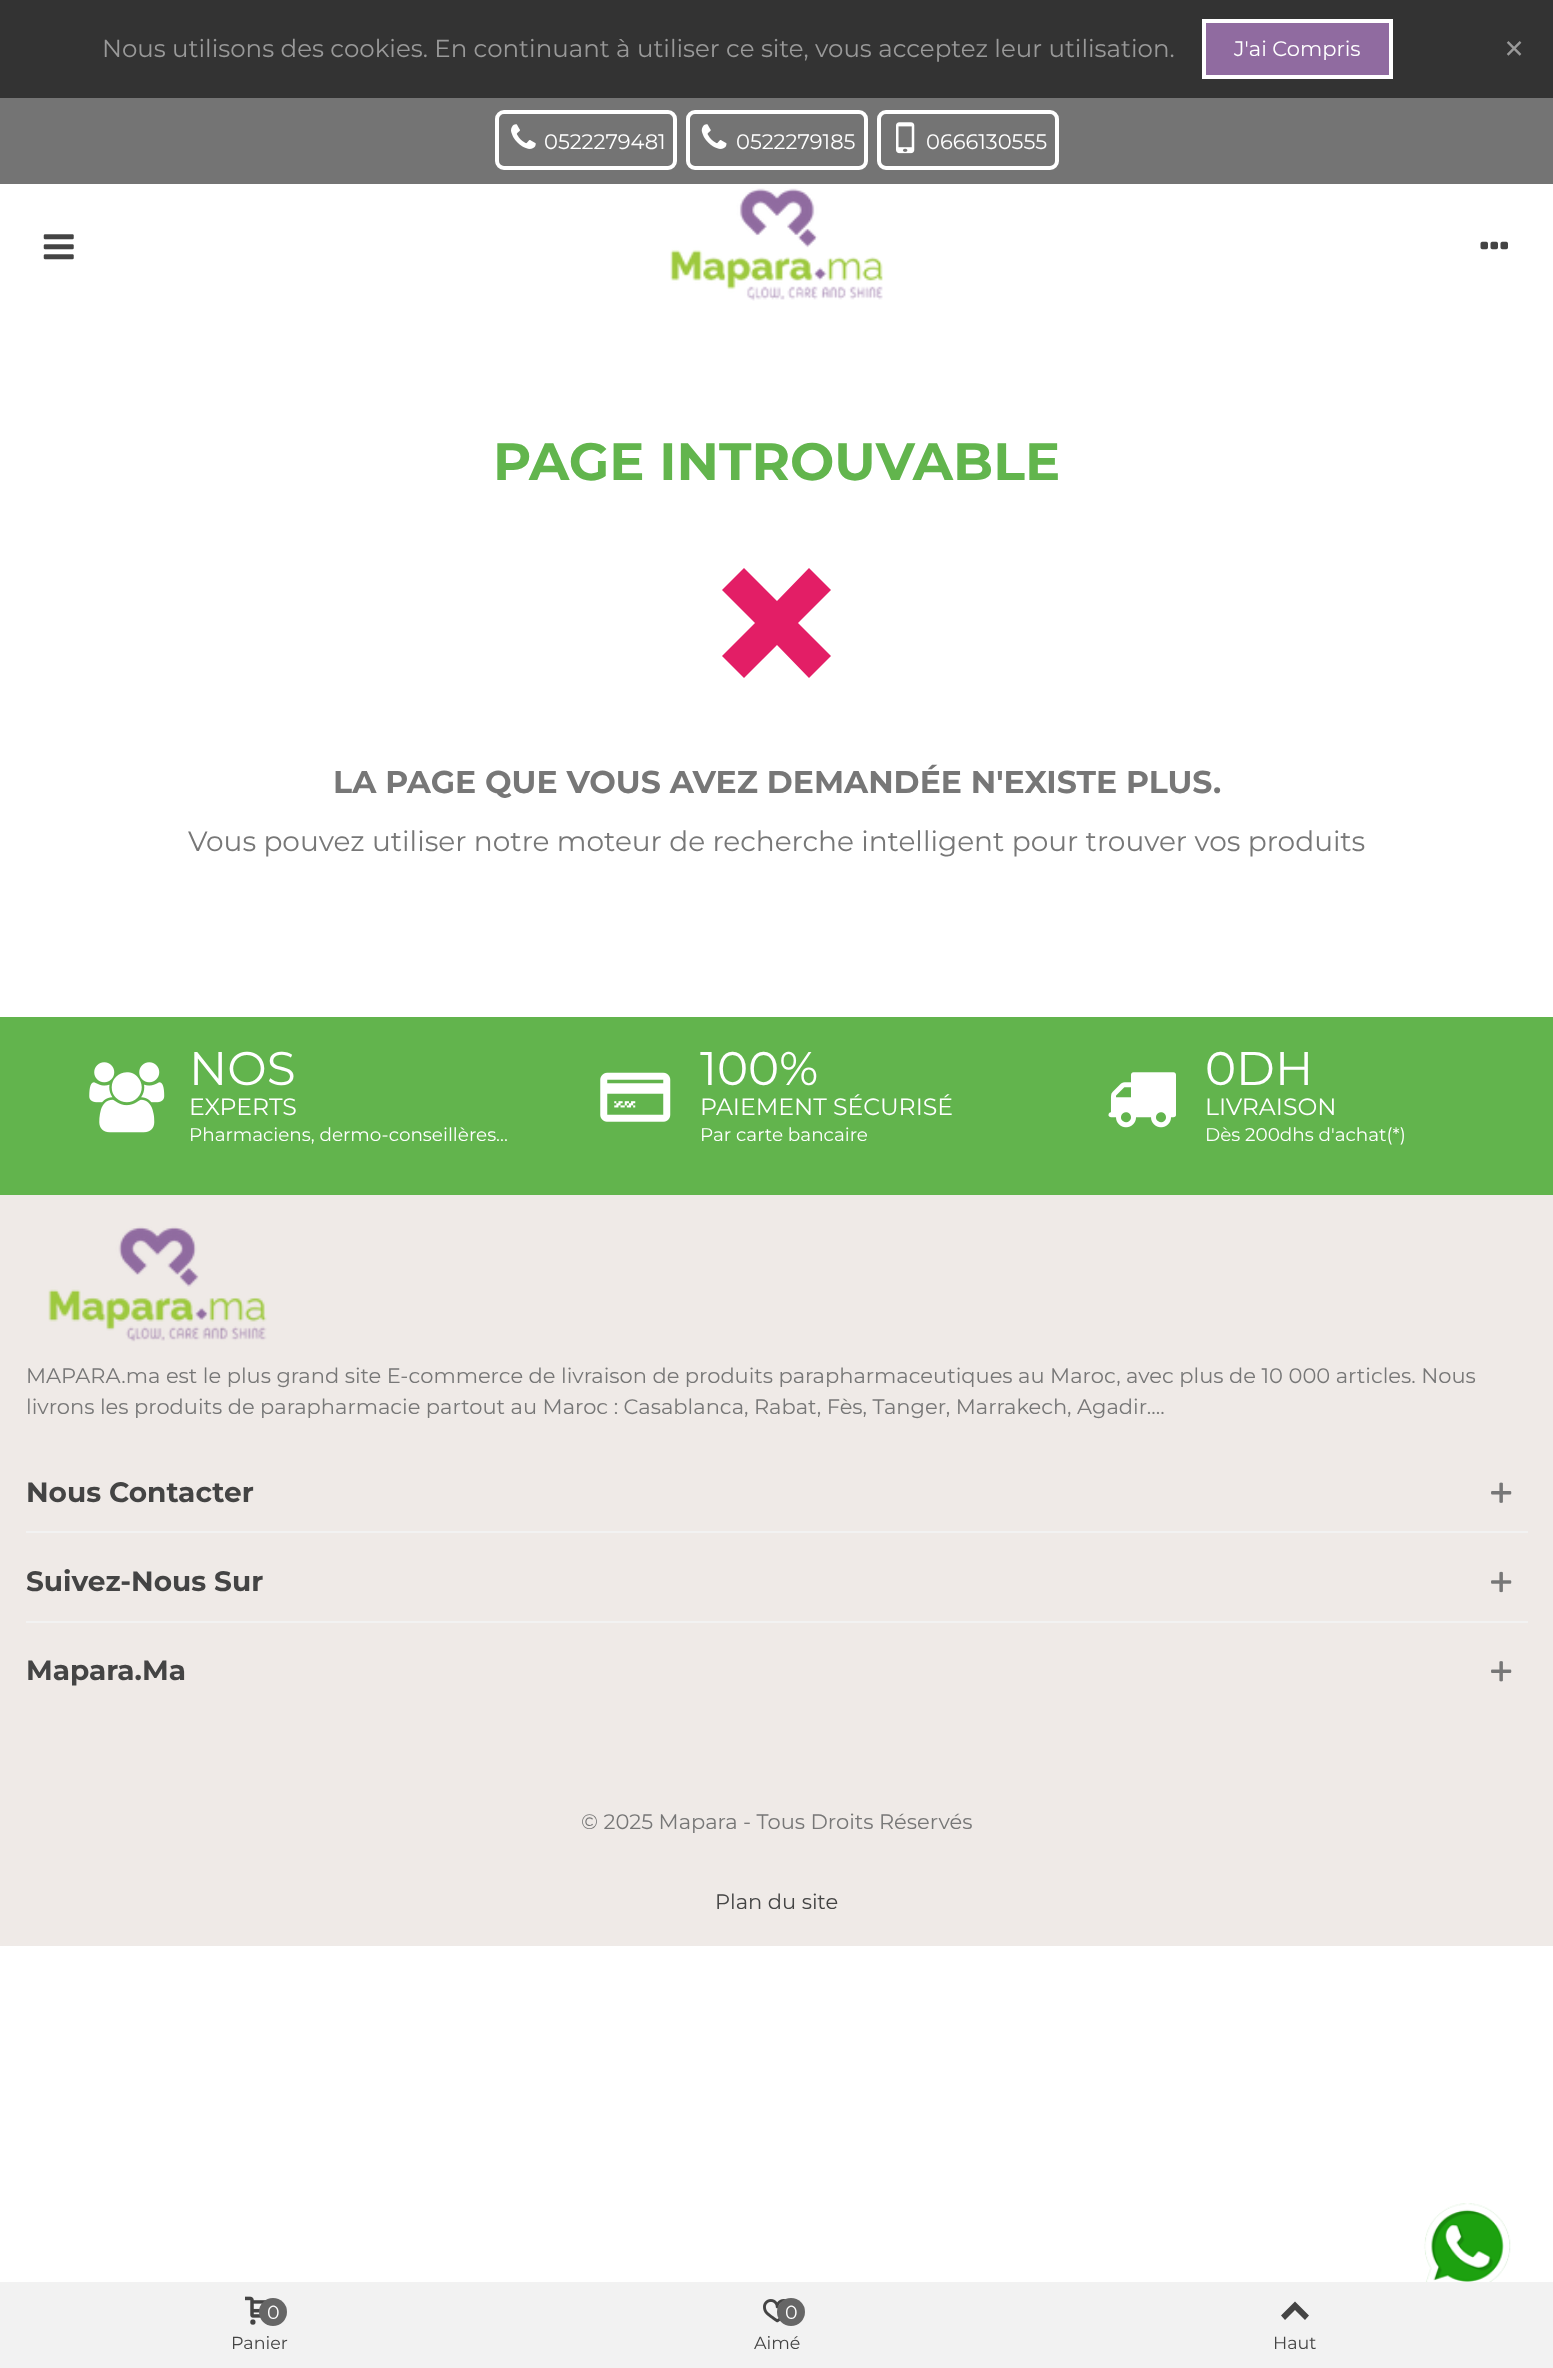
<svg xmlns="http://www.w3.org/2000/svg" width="1553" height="2368">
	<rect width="100%" height="100%" fill="#FFFFFF" />
	<rect x="0" y="0" width="1553" height="98" fill="#333333" />
	<text x="102" y="57" font-family="Montserrat" font-size="24.5" fill="#999999">Nous utilisons des cookies. En continuant à utiliser ce site, vous acceptez leur utilisation.</text>
	<rect x="1204" y="21" width="187" height="56" fill="#906BA0" stroke="#FFFFFF" stroke-width="4" />
	<text x="1234" y="56" font-family="Montserrat" font-size="21" fill="#FFFFFF">J'ai Compris</text>
	<text x="1502" y="63" font-family="Montserrat" font-size="42" fill="#999999">×</text>
	<rect x="0" y="98" width="1553" height="86" fill="#747474" />
	<rect x="497" y="112" width="178" height="56" rx="7" fill="none" stroke="#FFFFFF" stroke-width="4" />
	<image x="511" y="124" width="25" height="25" href="assets/img1.png" />
	<text x="544" y="149" font-family="Montserrat" font-size="21" fill="#FFFFFF">0522279481</text>
	<rect x="688" y="112" width="178" height="56" rx="7" fill="none" stroke="#FFFFFF" stroke-width="4" />
	<image x="701" y="124" width="26" height="25" href="assets/img2.png" />
	<text x="736" y="149" font-family="Montserrat" font-size="21" fill="#FFFFFF">0522279185</text>
	<rect x="879" y="112" width="178" height="56" rx="7" fill="none" stroke="#FFFFFF" stroke-width="4" />
	<image x="896" y="122" width="19" height="32" href="assets/img3.png" />
	<text x="926" y="149" font-family="Montserrat" font-size="21" fill="#FFFFFF">0666130555</text>
	<image x="43" y="234" width="31" height="26" href="assets/img4.png" />
	<image x="670" y="188" width="213" height="113" href="assets/img5.png" />
	<image x="1480" y="241" width="28" height="9" href="assets/img6.png" />
	<text x="493" y="480" font-family="Montserrat" font-size="52.5" font-weight="700" fill="#62B54D">PAGE INTROUVABLE</text>
	<path d="M831 656L809 678L777 645L744 678L722 656L755 623L722 590L744 568L777 601L809 568L831 590L798 623Z" fill="#E31E66" />
	<text x="333" y="793" font-family="Montserrat" font-size="31.5" font-weight="700" fill="#777777">LA PAGE QUE VOUS AVEZ DEMANDÉE N'EXISTE PLUS.</text>
	<text x="188" y="851" font-family="Montserrat" font-size="28" fill="#777777">Vous pouvez utiliser notre moteur de recherche intelligent pour trouver vos produits</text>
	<rect x="0" y="1017" width="1553" height="178" fill="#62B44D" />
	<image x="89" y="1062" width="76" height="71" href="assets/img7.png" />
	<text x="189" y="1085" font-family="Montserrat" font-size="47" fill="#FFFFFF">NOS</text>
	<text x="189" y="1115" font-family="Montserrat" font-size="23.6" fill="#FFFFFF">EXPERTS</text>
	<text x="189" y="1141" font-family="Montserrat" font-size="18.4" fill="#FFFFFF">Pharmaciens, dermo-conseillères...</text>
	<image x="600" y="1072" width="71" height="50" href="assets/img8.png" />
	<text x="700" y="1085" font-family="Montserrat" font-size="47" fill="#FFFFFF">100%</text>
	<text x="700" y="1115" font-family="Montserrat" font-size="23.6" fill="#FFFFFF">PAIEMENT SÉCURISÉ</text>
	<text x="700" y="1141" font-family="Montserrat" font-size="18.4" fill="#FFFFFF">Par carte bancaire</text>
	<image x="1108" y="1072" width="68" height="56" href="assets/img9.png" />
	<text x="1205" y="1085" font-family="Montserrat" font-size="47" fill="#FFFFFF">0DH</text>
	<text x="1205" y="1115" font-family="Montserrat" font-size="23.6" fill="#FFFFFF">LIVRAISON</text>
	<text x="1205" y="1141" font-family="Montserrat" font-size="18.4" fill="#FFFFFF">Dès 200dhs d'achat(*)</text>
	<image x="1423" y="2203" width="88" height="79" href="assets/img10.png" />
	<rect x="0" y="1195" width="1553" height="751" fill="#EFEAE7" />
	<image x="48" y="1226" width="219" height="116" href="assets/img11.png" />
	<g font-family="Montserrat" font-size="21" fill="#777777">
		<text x="26" y="1383">MAPARA.ma est le plus grand site E-commerce de livraison de produits parapharmaceutiques au Maroc, avec plus de 10 000 articles. Nous</text>
		<text x="26" y="1414">livrons les produits de parapharmacie partout au Maroc : Casablanca, Rabat, Fès, Tanger, Marrakech, Agadir....</text>
	</g>
	<rect x="26" y="1531" width="1502" height="2" fill="#F2F2F2" />
	<text x="26" y="1502" font-family="Montserrat" font-size="28" font-weight="700" fill="#444444">Nous Contacter</text>
	<image x="1491" y="1482" width="21" height="21" href="assets/img12.png" />
	<rect x="26" y="1621" width="1502" height="2" fill="#F2F2F2" />
	<text x="26" y="1591" font-family="Montserrat" font-size="28" font-weight="700" fill="#444444">Suivez-Nous Sur</text>
	<image x="1491" y="1571" width="21" height="22" href="assets/img13.png" />
	<text x="26" y="1680" font-family="Montserrat" font-size="28" font-weight="700" fill="#444444">Mapara.Ma</text>
	<image x="1491" y="1661" width="21" height="21" href="assets/img14.png" />
	<text x="581" y="1829" font-family="Montserrat" font-size="21" fill="#777777">© 2025 Mapara - Tous Droits Réservés</text>
	<text x="715" y="1909" font-family="Montserrat" font-size="21" fill="#444444">Plan du site</text>
	<rect x="0" y="2282" width="1553" height="86" fill="#F2F2F2" />
	<image x="245" y="2296" width="23" height="29" href="assets/img15.png" />
	<circle cx="273" cy="2312" r="14" fill="#666666" />
	<text x="267" y="2319" font-family="Montserrat" font-size="19" fill="#FFFFFF">0</text>
	<text x="231" y="2349" font-family="Montserrat" font-size="17.5" fill="#444444">Panier</text>
	<image x="763" y="2299" width="23" height="24" href="assets/img16.png" />
	<circle cx="791" cy="2312" r="14" fill="#666666" />
	<text x="785" y="2319" font-family="Montserrat" font-size="19" fill="#FFFFFF">0</text>
	<text x="754" y="2349" font-family="Montserrat" font-size="17.5" fill="#444444">Aimé</text>
	<path d="M1281 2315.5L1295 2301.5L1309 2315.5L1305 2320L1295 2310L1285 2320Z" fill="#444444" />
	<text x="1273" y="2349" font-family="Montserrat" font-size="17.5" fill="#444444">Haut</text>
</svg>
